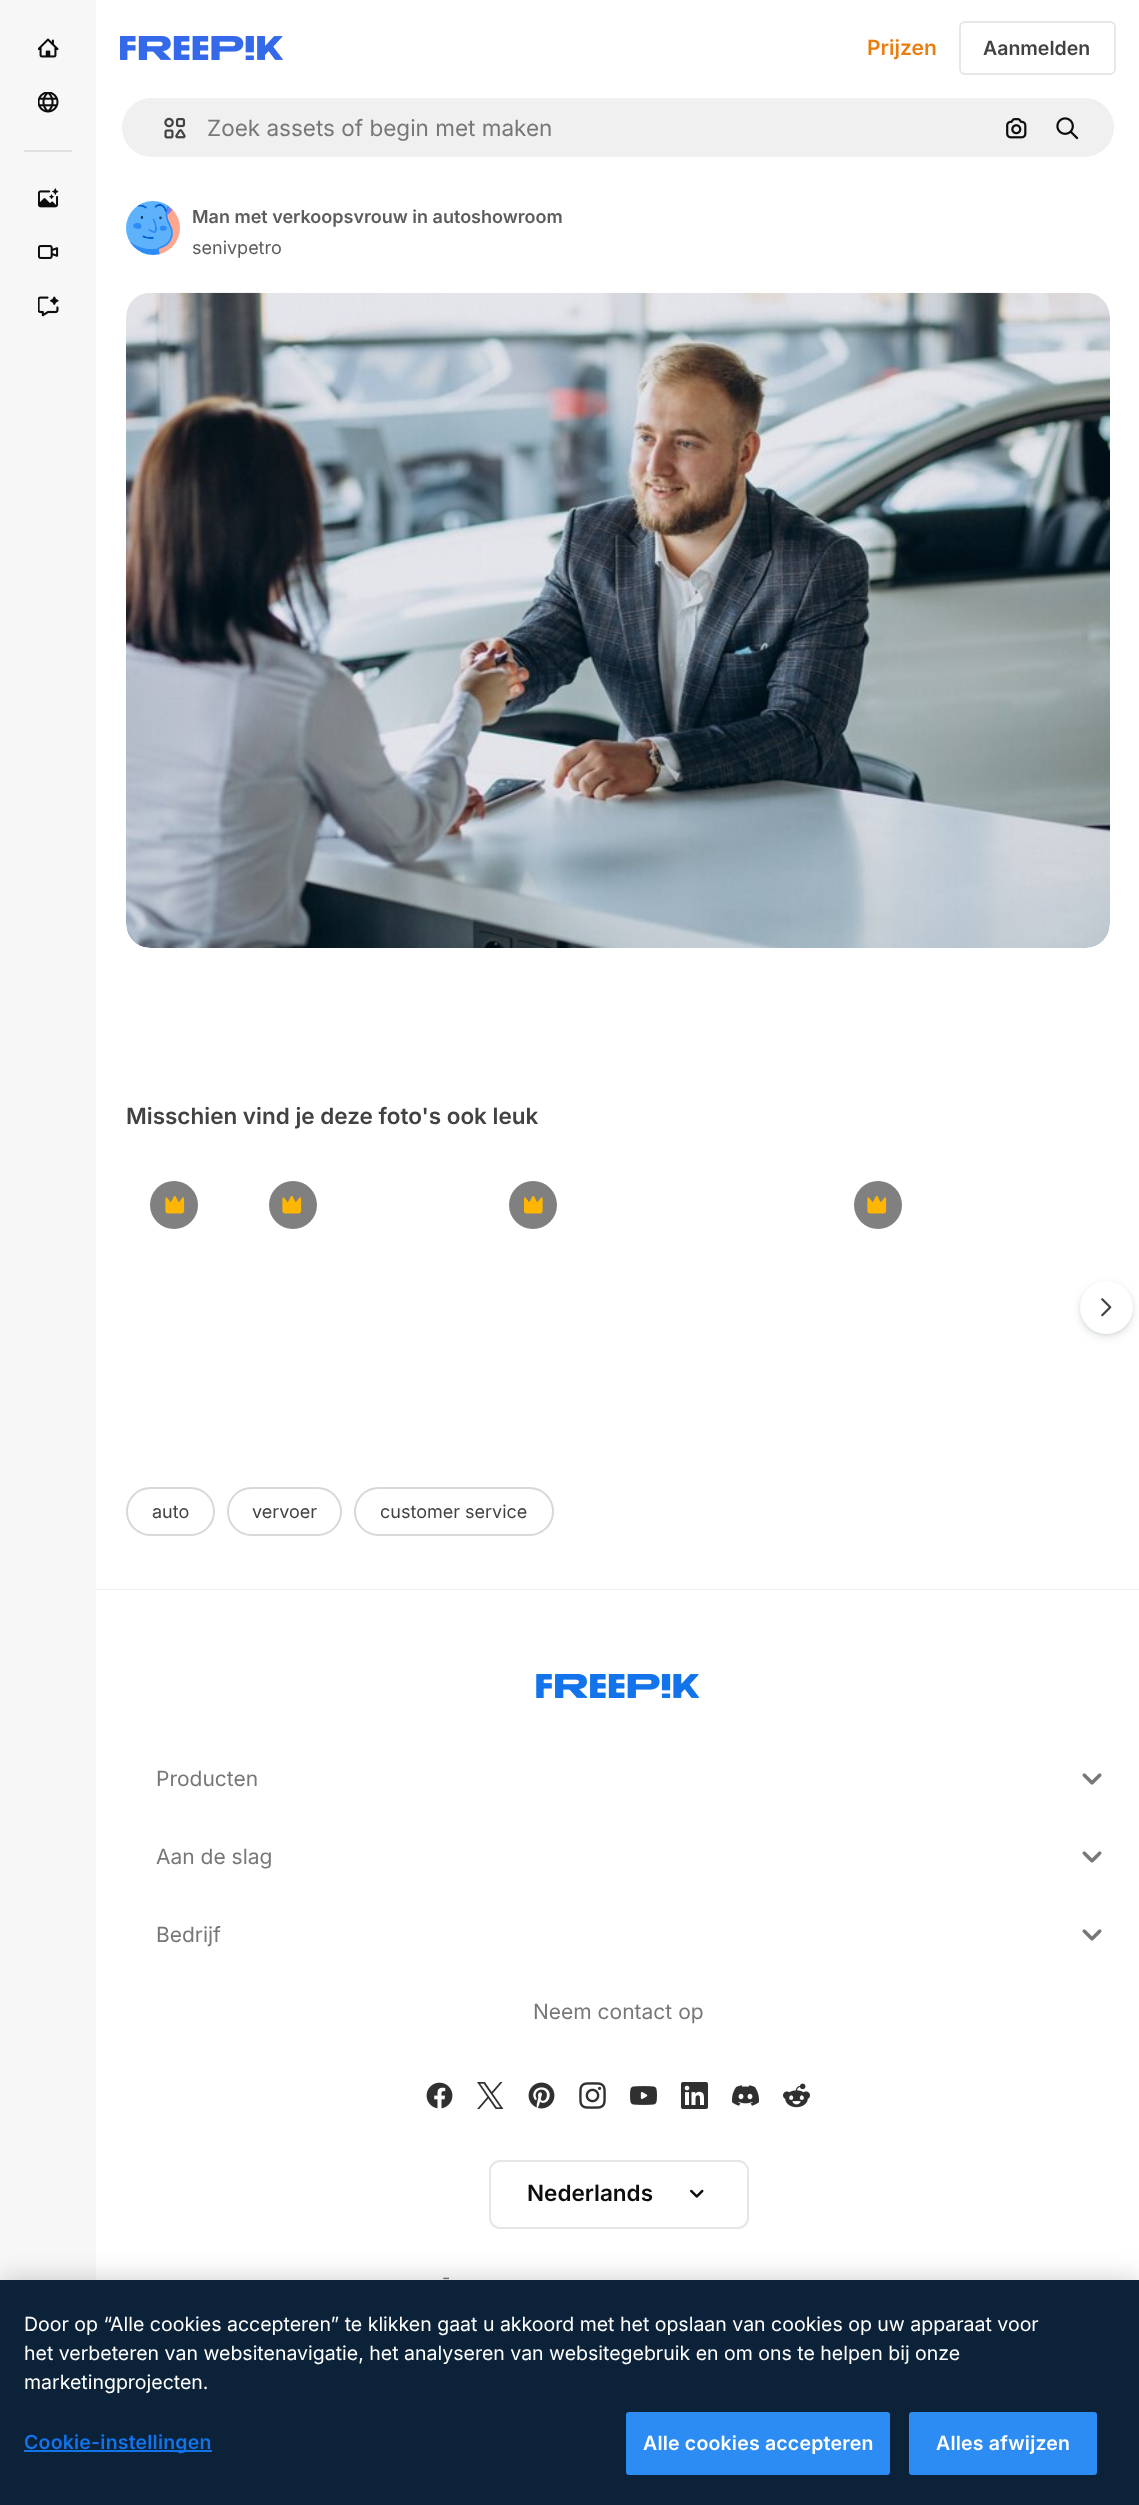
<svg xmlns="http://www.w3.org/2000/svg" width="1139" height="2505">
	<rect width="100%" height="100%" fill="#FFFFFF" />
	<rect x="0" y="0" width="96" height="2280" fill="#F7F7F7" />
	<image x="38" y="38" width="21" height="20" href="assets/img1.png" />
	<image x="38" y="92" width="21" height="21" href="assets/img2.png" />
	<rect x="24" y="150" width="48" height="2" fill="#E0E0E0" />
	<image x="38" y="188" width="21" height="20" href="assets/img3.png" />
	<image x="38" y="245" width="21" height="14" href="assets/img4.png" />
	<image x="38" y="296" width="21" height="21" href="assets/img5.png" />
	<image x="120" y="36" width="163" height="24" href="assets/img6.png" />
	<text x="867" y="55" font-family="Inter" font-size="21" font-weight="600" fill="#EA7E11">Prijzen</text>
	<rect x="960" y="22" width="155" height="52" rx="5" fill="none" stroke="#E7E7E7" stroke-width="2" />
	<text x="983" y="55" font-family="Inter" font-size="19.5" font-weight="600" fill="#424242">Aanmelden</text>
	<rect x="121" y="97" width="994" height="61" rx="30.5" fill="#F0F0F0" stroke="#FFFFFF" stroke-width="2" />
	<image x="164" y="117" width="22" height="22" href="assets/img7.png" />
	<text x="207" y="136" font-family="Inter" font-size="22.5" fill="#777777">Zoek assets of begin met maken</text>
	<image x="1006" y="118" width="21" height="21" href="assets/img8.png" />
	<image x="1056" y="117" width="23" height="23" href="assets/img9.png" />
	<image x="126" y="201" width="54" height="54" href="assets/img10.png" />
	<text x="192" y="223" font-family="Inter" font-size="18" font-weight="600" fill="#5C5C5C">Man met verkoopsvrouw in autoshowroom</text>
	<text x="192" y="254" font-family="Inter" font-size="18" fill="#5C5C5C">senivpetro</text>
	<image x="126" y="292" width="984" height="656" href="assets/img11.png" />
	<text x="126" y="1124" font-family="Inter" font-size="22.5" font-weight="600" fill="#424242">Misschien vind je deze foto's ook leuk</text>
	<circle cx="174" cy="1205" r="24" fill="#808080" />
	<image x="165" y="1196" width="20" height="18" href="assets/img12.png" />
	<circle cx="293" cy="1205" r="24" fill="#808080" />
	<image x="282" y="1196" width="20" height="18" href="assets/img12.png" />
	<circle cx="533" cy="1205" r="24" fill="#808080" />
	<image x="524" y="1196" width="19" height="18" href="assets/img13.png" />
	<circle cx="878" cy="1205" r="24" fill="#808080" />
	<image x="867" y="1196" width="20" height="18" href="assets/img12.png" />
	<rect x="1080" y="1284" width="53" height="53" rx="26.5" fill="#374957" fill-opacity="0.15" filter="blur(4px)" />
	<rect x="1080" y="1283" width="53" height="52" rx="26" fill="#374957" fill-opacity="0.1" filter="blur(1.5px)" />
	<circle cx="1106.5" cy="1307.5" r="26.5" fill="#FFFFFF" />
	<image x="1101" y="1298" width="11" height="19" href="assets/img14.png" />
	<rect x="127" y="1488" width="87" height="47" rx="23.5" fill="none" stroke="#D8D8D8" stroke-width="2" />
	<text x="152" y="1518" font-family="Inter" font-size="18" fill="#424242">auto</text>
	<rect x="228" y="1488" width="113" height="47" rx="23.5" fill="none" stroke="#D8D8D8" stroke-width="2" />
	<text x="252" y="1518" font-family="Inter" font-size="18" fill="#424242">vervoer</text>
	<rect x="355" y="1488" width="198" height="47" rx="23.5" fill="none" stroke="#D8D8D8" stroke-width="2" />
	<text x="380" y="1518" font-family="Inter" font-size="18" fill="#424242">customer service</text>
	<rect x="96" y="1589" width="1043" height="1" fill="#F0F0F0" />
	<image x="536" y="1674" width="164" height="24" href="assets/img15.png" />
	<text x="156" y="1786" font-family="Inter" font-size="21" fill="#777777">Producten</text>
	<image x="1082" y="1773" width="20" height="12" href="assets/img16.png" />
	<text x="156" y="1864" font-family="Inter" font-size="21" fill="#777777">Aan de slag</text>
	<image x="1082" y="1851" width="20" height="12" href="assets/img16.png" />
	<text x="156" y="1942" font-family="Inter" font-size="21" fill="#777777">Bedrijf</text>
	<image x="1082" y="1929" width="20" height="12" href="assets/img16.png" />
	<text x="533" y="2019" font-family="Inter" font-size="21" fill="#777777">Neem contact op</text>
	<image x="426" y="2082" width="27" height="27" href="assets/img17.png" />
	<image x="477" y="2082" width="27" height="27" href="assets/img18.png" />
	<image x="528" y="2082" width="27" height="27" href="assets/img19.png" />
	<image x="579" y="2082" width="27" height="27" href="assets/img20.png" />
	<image x="630" y="2086" width="27" height="19" href="assets/img21.png" />
	<image x="681" y="2082" width="27" height="27" href="assets/img22.png" />
	<image x="732" y="2085" width="27" height="21" href="assets/img23.png" />
	<image x="783" y="2083" width="27" height="25" href="assets/img24.png" />
	<rect x="490" y="2161" width="258" height="67" rx="10" fill="none" stroke="#E6E6E6" stroke-width="2" />
	<text x="527" y="2201" font-family="Inter" font-size="22.5" font-weight="600" fill="#0D0D0D">Nederlands</text>
	<image x="690" y="2189" width="14" height="9" href="assets/img25.png" />
	<text x="442" y="2284" font-family="Inter" font-size="18" fill="#777777">-</text>
	<rect x="0" y="2280" width="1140" height="225" fill="#000000" fill-opacity="0.2" filter="blur(13.5px)" />
	<rect x="0" y="2280" width="1139" height="225" fill="#0B2239" />
	<g font-family="Inter" font-size="19.5" fill="#FFFFFF">
		<text x="24" y="2331">Door op “Alle cookies accepteren” te klikken gaat u akkoord met het opslaan van cookies op uw apparaat voor</text>
		<text x="24" y="2360">het verbeteren van websitenavigatie, het analyseren van websitegebruik en om ons te helpen bij onze</text>
		<text x="24" y="2389">marketingprojecten.</text>
	</g>
	<rect x="24" y="2450" width="188" height="2" fill="#1273EB" />
	<text x="24" y="2449" font-family="Inter" font-size="19.5" font-weight="600" letter-spacing="0.2" fill="#1273EB">Cookie-instellingen</text>
	<rect x="627" y="2413" width="262" height="61" rx="2" fill="#2C8CF4" stroke="#2C8CF4" stroke-width="2" />
	<text x="643" y="2450" font-family="Inter" font-size="19.5" font-weight="600" letter-spacing="0.2" fill="#FFFFFF">Alle cookies accepteren</text>
	<rect x="910" y="2413" width="186" height="61" rx="2" fill="#2C8CF4" stroke="#2C8CF4" stroke-width="2" />
	<text x="936" y="2450" font-family="Inter" font-size="19.5" font-weight="600" letter-spacing="0.2" fill="#FFFFFF">Alles afwijzen</text>
</svg>
